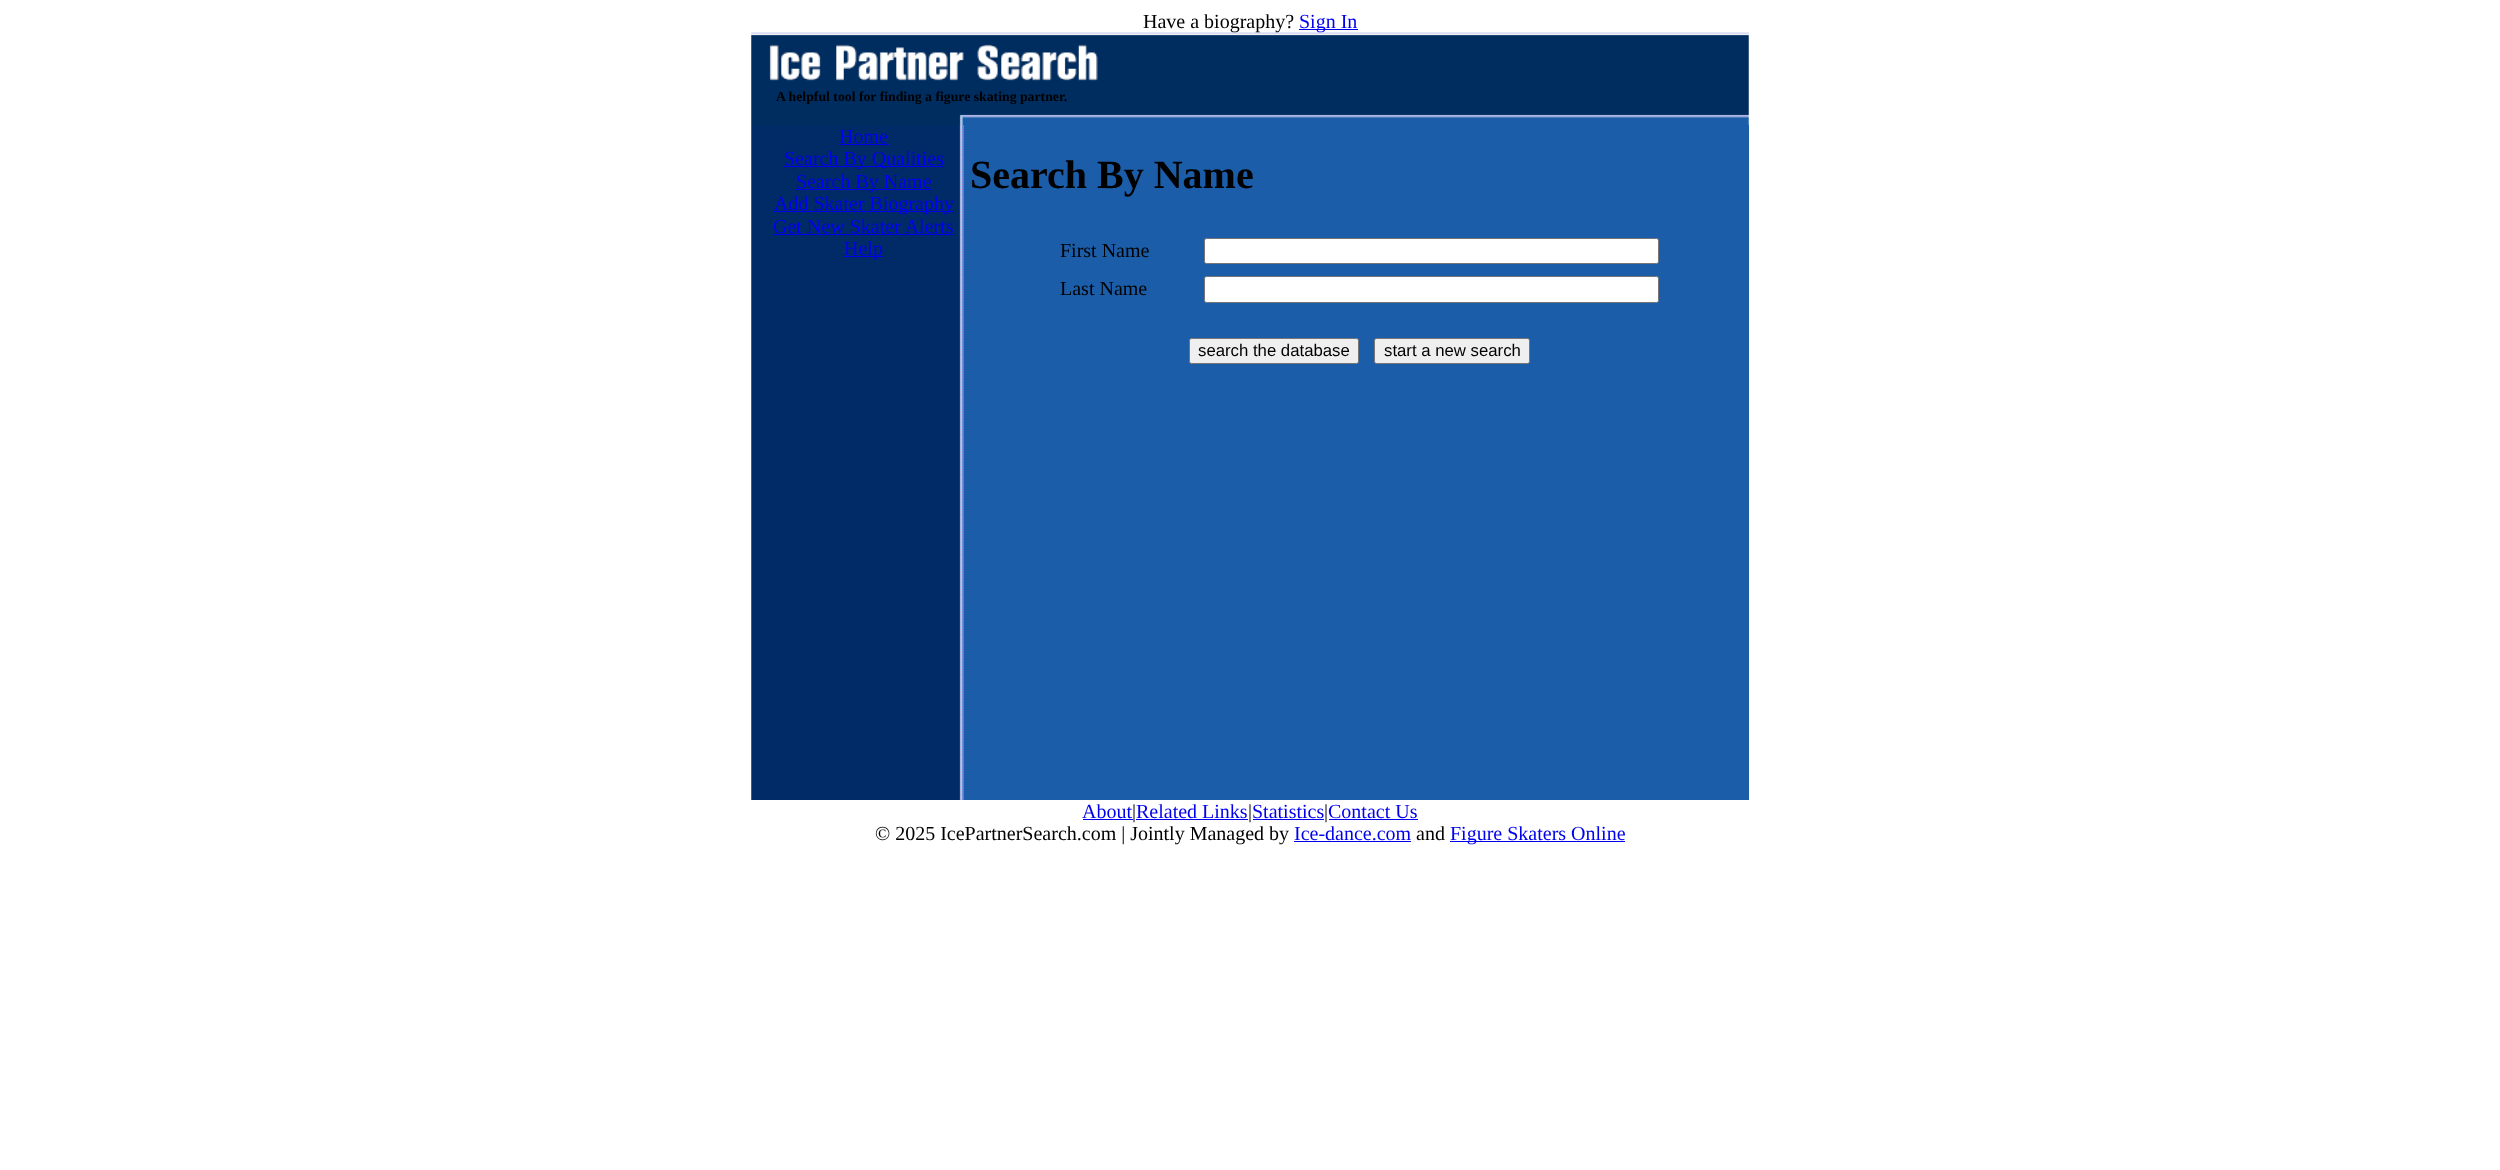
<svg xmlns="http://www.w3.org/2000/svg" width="2500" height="1170">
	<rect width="100%" height="100%" fill="#FFFFFF" />
	<image x="751" y="32" width="998" height="93" href="assets/img1.png" />
	<text x="1143" y="28" font-family="Liberation Serif" font-size="20" fill="#000000">Have a biography?</text>
	<rect x="1299" y="29" width="59" height="1" fill="#0000EE" />
	<text x="1299" y="28" font-family="Liberation Serif" font-size="20" fill="#0000EE">Sign In</text>
	<text x="776" y="101" font-family="Liberation Serif" font-size="13.75" font-weight="700" fill="#000000">A helpful tool for finding a figure skating partner.</text>
	<image x="751" y="125" width="213" height="675" href="assets/img2.png" />
	<text x="839" y="143" font-family="Liberation Serif" font-size="20" fill="#0000EE">Home</text>
	<rect x="839" y="144" width="50" height="1" fill="#0000EE" />
	<rect x="784" y="166" width="160" height="1" fill="#0000EE" />
	<text x="784" y="165" font-family="Liberation Serif" font-size="20" fill="#0000EE">Search By Qualities</text>
	<rect x="796" y="189" width="135" height="1" fill="#0000EE" />
	<text x="796" y="188" font-family="Liberation Serif" font-size="20" fill="#0000EE">Search By Name</text>
	<rect x="774" y="211" width="180" height="1" fill="#0000EE" />
	<g font-family="Liberation Serif" font-size="20" fill="#0000EE">
		<text x="774" y="210">Add Skater Biography</text>
		<text x="773" y="233">Get New Skater Alerts</text>
	</g>
	<rect x="774" y="234" width="180" height="1" fill="#0000EE" />
	<rect x="844" y="256" width="40" height="1" fill="#0000EE" />
	<text x="844" y="255" font-family="Liberation Serif" font-size="20" fill="#0000EE">Help</text>
	<rect x="964" y="125" width="785" height="675" fill="#1B5DA8" />
	<text x="970" y="188" font-family="Liberation Serif" font-size="40" font-weight="700" fill="#000000">Search By Name</text>
	<text x="1060" y="257" font-family="Liberation Serif" font-size="20" fill="#000000">First Name</text>
	<rect x="1204.5" y="238.5" width="454" height="25" rx="2" fill="#FFFFFF" stroke="#767676" />
	<text x="1060" y="295" font-family="Liberation Serif" font-size="20" fill="#000000">Last Name</text>
	<rect x="1204.5" y="276.5" width="454" height="26" rx="2" fill="#FFFFFF" stroke="#767676" />
	<rect x="1189.5" y="338.5" width="169" height="25" rx="2" fill="#EFEFEF" stroke="#767676" />
	<text x="1198" y="356" font-family="Liberation Sans" font-size="16.75" fill="#000000">search the database</text>
	<rect x="1374.5" y="338.5" width="155" height="25" rx="2" fill="#EFEFEF" stroke="#767676" />
	<text x="1384" y="356" font-family="Liberation Sans" font-size="16.75" fill="#000000">start a new search</text>
	<text x="1082" y="818" font-family="Liberation Serif" font-size="20" fill="#0000EE">About</text>
	<rect x="1083" y="819" width="50" height="1" fill="#0000EE" />
	<text x="1132" y="818" font-family="Liberation Serif" font-size="20" fill="#000000">|</text>
	<text x="1136" y="818" font-family="Liberation Serif" font-size="20" fill="#0000EE">Related Links</text>
	<rect x="1136" y="819" width="112" height="1" fill="#0000EE" />
	<text x="1248" y="818" font-family="Liberation Serif" font-size="20" fill="#000000">|</text>
	<text x="1252" y="818" font-family="Liberation Serif" font-size="20" fill="#0000EE">Statistics</text>
	<rect x="1253" y="819" width="71" height="1" fill="#0000EE" />
	<text x="1324" y="818" font-family="Liberation Serif" font-size="20" fill="#000000">|</text>
	<text x="1328" y="818" font-family="Liberation Serif" font-size="20" fill="#0000EE">Contact Us</text>
	<rect x="1329" y="819" width="89" height="1" fill="#0000EE" />
	<text x="875" y="840" font-family="Liberation Serif" font-size="20" fill="#000000">© 2025 IcePartnerSearch.com | Jointly Managed by</text>
	<text x="1294" y="840" font-family="Liberation Serif" font-size="20" fill="#0000EE">Ice-dance.com</text>
	<rect x="1294" y="841" width="117" height="1" fill="#0000EE" />
	<text x="1416" y="840" font-family="Liberation Serif" font-size="20" fill="#000000">and</text>
	<rect x="1450" y="841" width="175" height="1" fill="#0000EE" />
	<text x="1450" y="840" font-family="Liberation Serif" font-size="20" fill="#0000EE">Figure Skaters Online</text>
</svg>
